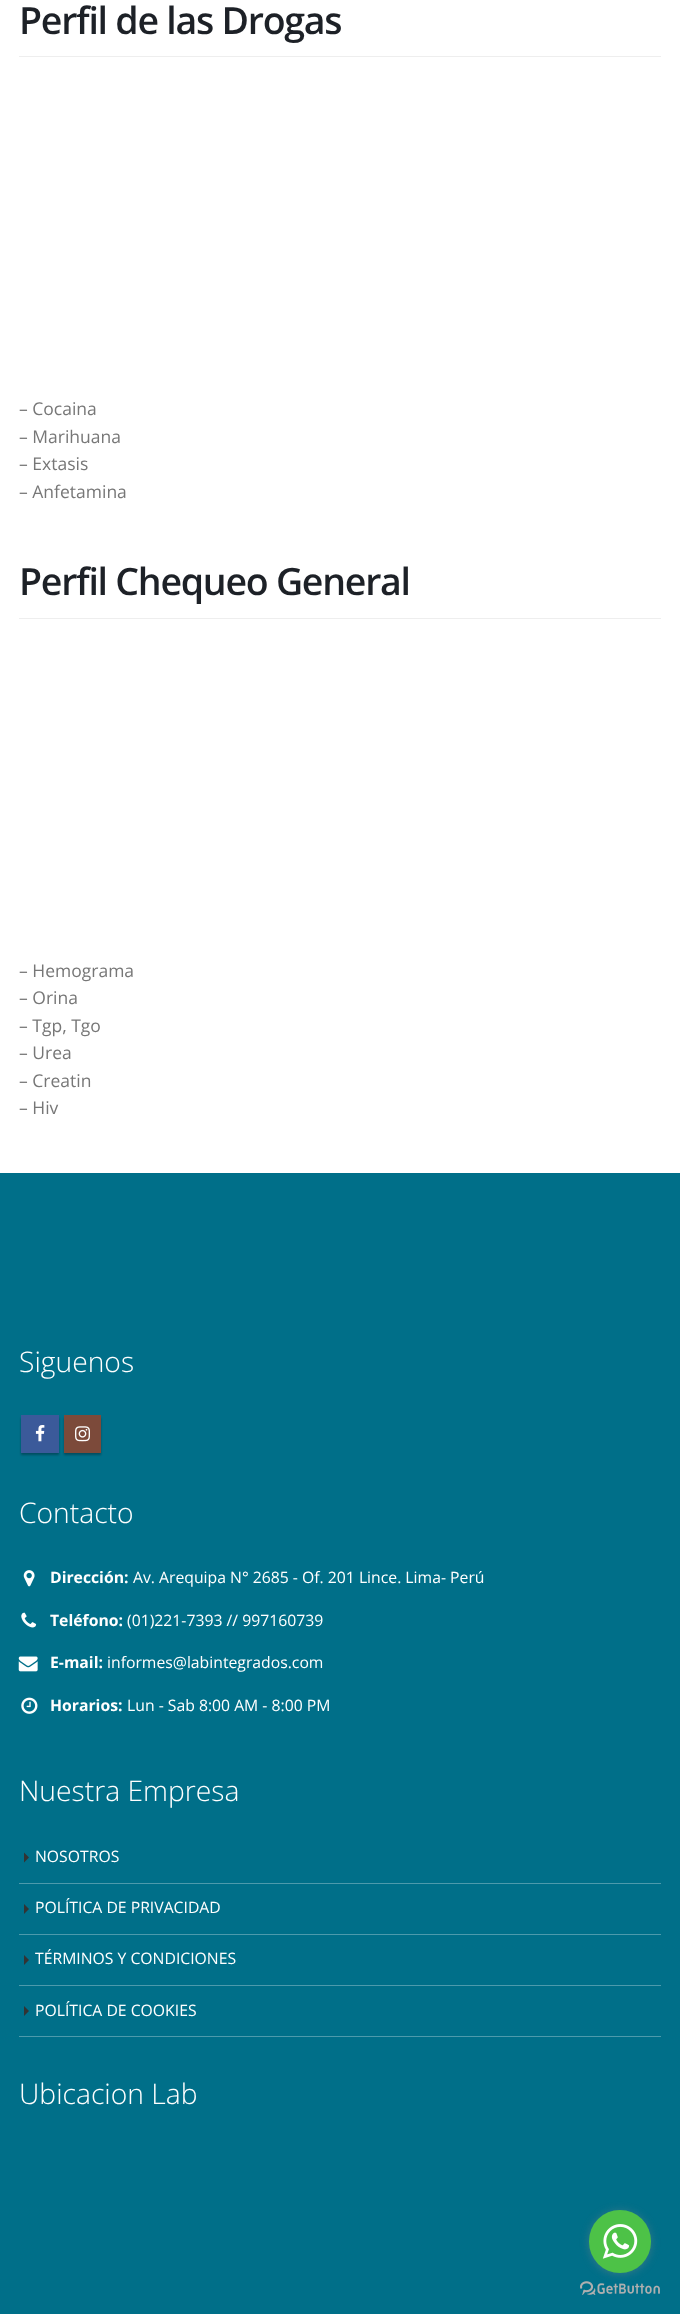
<svg xmlns="http://www.w3.org/2000/svg" width="680" height="2314">
	<rect width="100%" height="100%" fill="#FFFFFF" />
	<rect x="19" y="56" width="642" height="1" fill="#EEEEEE" />
	<text x="19" y="34" font-family="Open Sans" font-size="37.5" font-weight="600" letter-spacing="-1.25" fill="#1D2127">Perfil de las Drogas</text>
	<g font-family="Open Sans" font-size="17.5" fill="#777777">
		<text x="19" y="415">– Cocaina</text>
		<text x="19" y="443">– Marihuana</text>
		<text x="19" y="470">– Extasis</text>
		<text x="19" y="498">– Anfetamina</text>
	</g>
	<rect x="19" y="618" width="642" height="1" fill="#EEEEEE" />
	<text x="19" y="595" font-family="Open Sans" font-size="37.5" font-weight="600" letter-spacing="-1.25" fill="#1D2127">Perfil Chequeo General</text>
	<g font-family="Open Sans" font-size="17.5" fill="#777777">
		<text x="19" y="977">– Hemograma</text>
		<text x="19" y="1004">– Orina</text>
		<text x="19" y="1032">– Tgp, Tgo</text>
		<text x="19" y="1059">– Urea</text>
		<text x="19" y="1087">– Creatin</text>
		<text x="19" y="1114">– Hiv</text>
	</g>
	<rect x="0" y="1173" width="680" height="1141" fill="#006F89" />
	<text x="19" y="1372" font-family="Open Sans" font-size="28.25" font-weight="300" fill="#FFFFFF">Siguenos</text>
	<rect x="21" y="1418" width="38" height="37" fill="#000000" fill-opacity="0.3" filter="blur(1px)" />
	<rect x="21" y="1415" width="38" height="38" fill="#3B5A9A" />
	<image x="35" y="1425" width="10" height="17" href="assets/img1.png" />
	<rect x="64" y="1418" width="37" height="37" fill="#000000" fill-opacity="0.3" filter="blur(1px)" />
	<rect x="64" y="1415" width="37" height="38" fill="#7C4A3A" />
	<image x="75" y="1426" width="15" height="16" href="assets/img2.png" />
	<text x="19" y="1523" font-family="Open Sans" font-size="28.25" font-weight="300" fill="#FFFFFF">Contacto</text>
	<image x="23" y="1570" width="12" height="17" href="assets/img3.png" />
	<text x="50" y="1583" font-family="Open Sans" font-size="15.75" font-weight="700" fill="#FFFFFF">Dirección:</text>
	<text x="133" y="1583" font-family="Open Sans" font-size="15.75" fill="#FFFFFF">Av. Arequipa N° 2685 - Of. 201 Lince. Lima- Perú</text>
	<image x="21" y="1612" width="16" height="16" href="assets/img4.png" />
	<text x="50" y="1626" font-family="Open Sans" font-size="15.75" font-weight="700" fill="#FFFFFF">Teléfono:</text>
	<text x="127" y="1626" font-family="Open Sans" font-size="15.75" fill="#FFFFFF">(01)221-7393 // 997160739</text>
	<image x="18" y="1656" width="20" height="16" href="assets/img5.png" />
	<text x="50" y="1668" font-family="Open Sans" font-size="15.75" font-weight="700" fill="#FFFFFF">E-mail:</text>
	<text x="107" y="1668" font-family="Open Sans" font-size="15.75" fill="#FFFFFF">informes@labintegrados.com</text>
	<image x="21" y="1697" width="17" height="17" href="assets/img6.png" />
	<text x="50" y="1711" font-family="Open Sans" font-size="15.75" font-weight="700" fill="#FFFFFF">Horarios:</text>
	<text x="127" y="1711" font-family="Open Sans" font-size="15.75" fill="#FFFFFF">Lun - Sab 8:00 AM - 8:00 PM</text>
	<text x="19" y="1801" font-family="Open Sans" font-size="28.25" font-weight="300" fill="#FFFFFF">Nuestra Empresa</text>
	<rect x="19" y="2036" width="642" height="1" fill="#4D9AAC" />
	<path d="M24 1862.5V1852.5L29 1857.5Z" fill="#333333" />
	<text x="35" y="1862" font-family="Open Sans" font-size="15.75" fill="#FFFFFF">NOSOTROS</text>
	<rect x="19" y="1883" width="642" height="1" fill="#4D9AAC" />
	<path d="M24 1914V1904L29 1909Z" fill="#333333" />
	<text x="35" y="1913" font-family="Open Sans" font-size="15.75" fill="#FFFFFF">POLÍTICA DE PRIVACIDAD</text>
	<rect x="19" y="1934" width="642" height="1" fill="#4D9AAC" />
	<path d="M24 1965V1955L29 1960Z" fill="#333333" />
	<text x="35" y="1964" font-family="Open Sans" font-size="15.75" fill="#FFFFFF">TÉRMINOS Y CONDICIONES</text>
	<rect x="19" y="1985" width="642" height="1" fill="#4D9AAC" />
	<path d="M24 2016V2006L29 2011Z" fill="#333333" />
	<text x="35" y="2016" font-family="Open Sans" font-size="15.75" fill="#FFFFFF">POLÍTICA DE COOKIES</text>
	<text x="19" y="2104" font-family="Open Sans" font-size="28.25" font-weight="300" fill="#FFFFFF">Ubicacion Lab</text>
	<image x="580" y="2281" width="80" height="14" href="assets/img8.png" />
	<rect x="589" y="2211" width="62" height="63" rx="31" fill="#888888" fill-opacity="0.4" filter="blur(4.5px)" />
	<rect x="589" y="2210" width="62" height="63" rx="31" fill="#4DC247" />
	<image x="602" y="2224" width="36" height="35" href="assets/img7.png" />
</svg>
